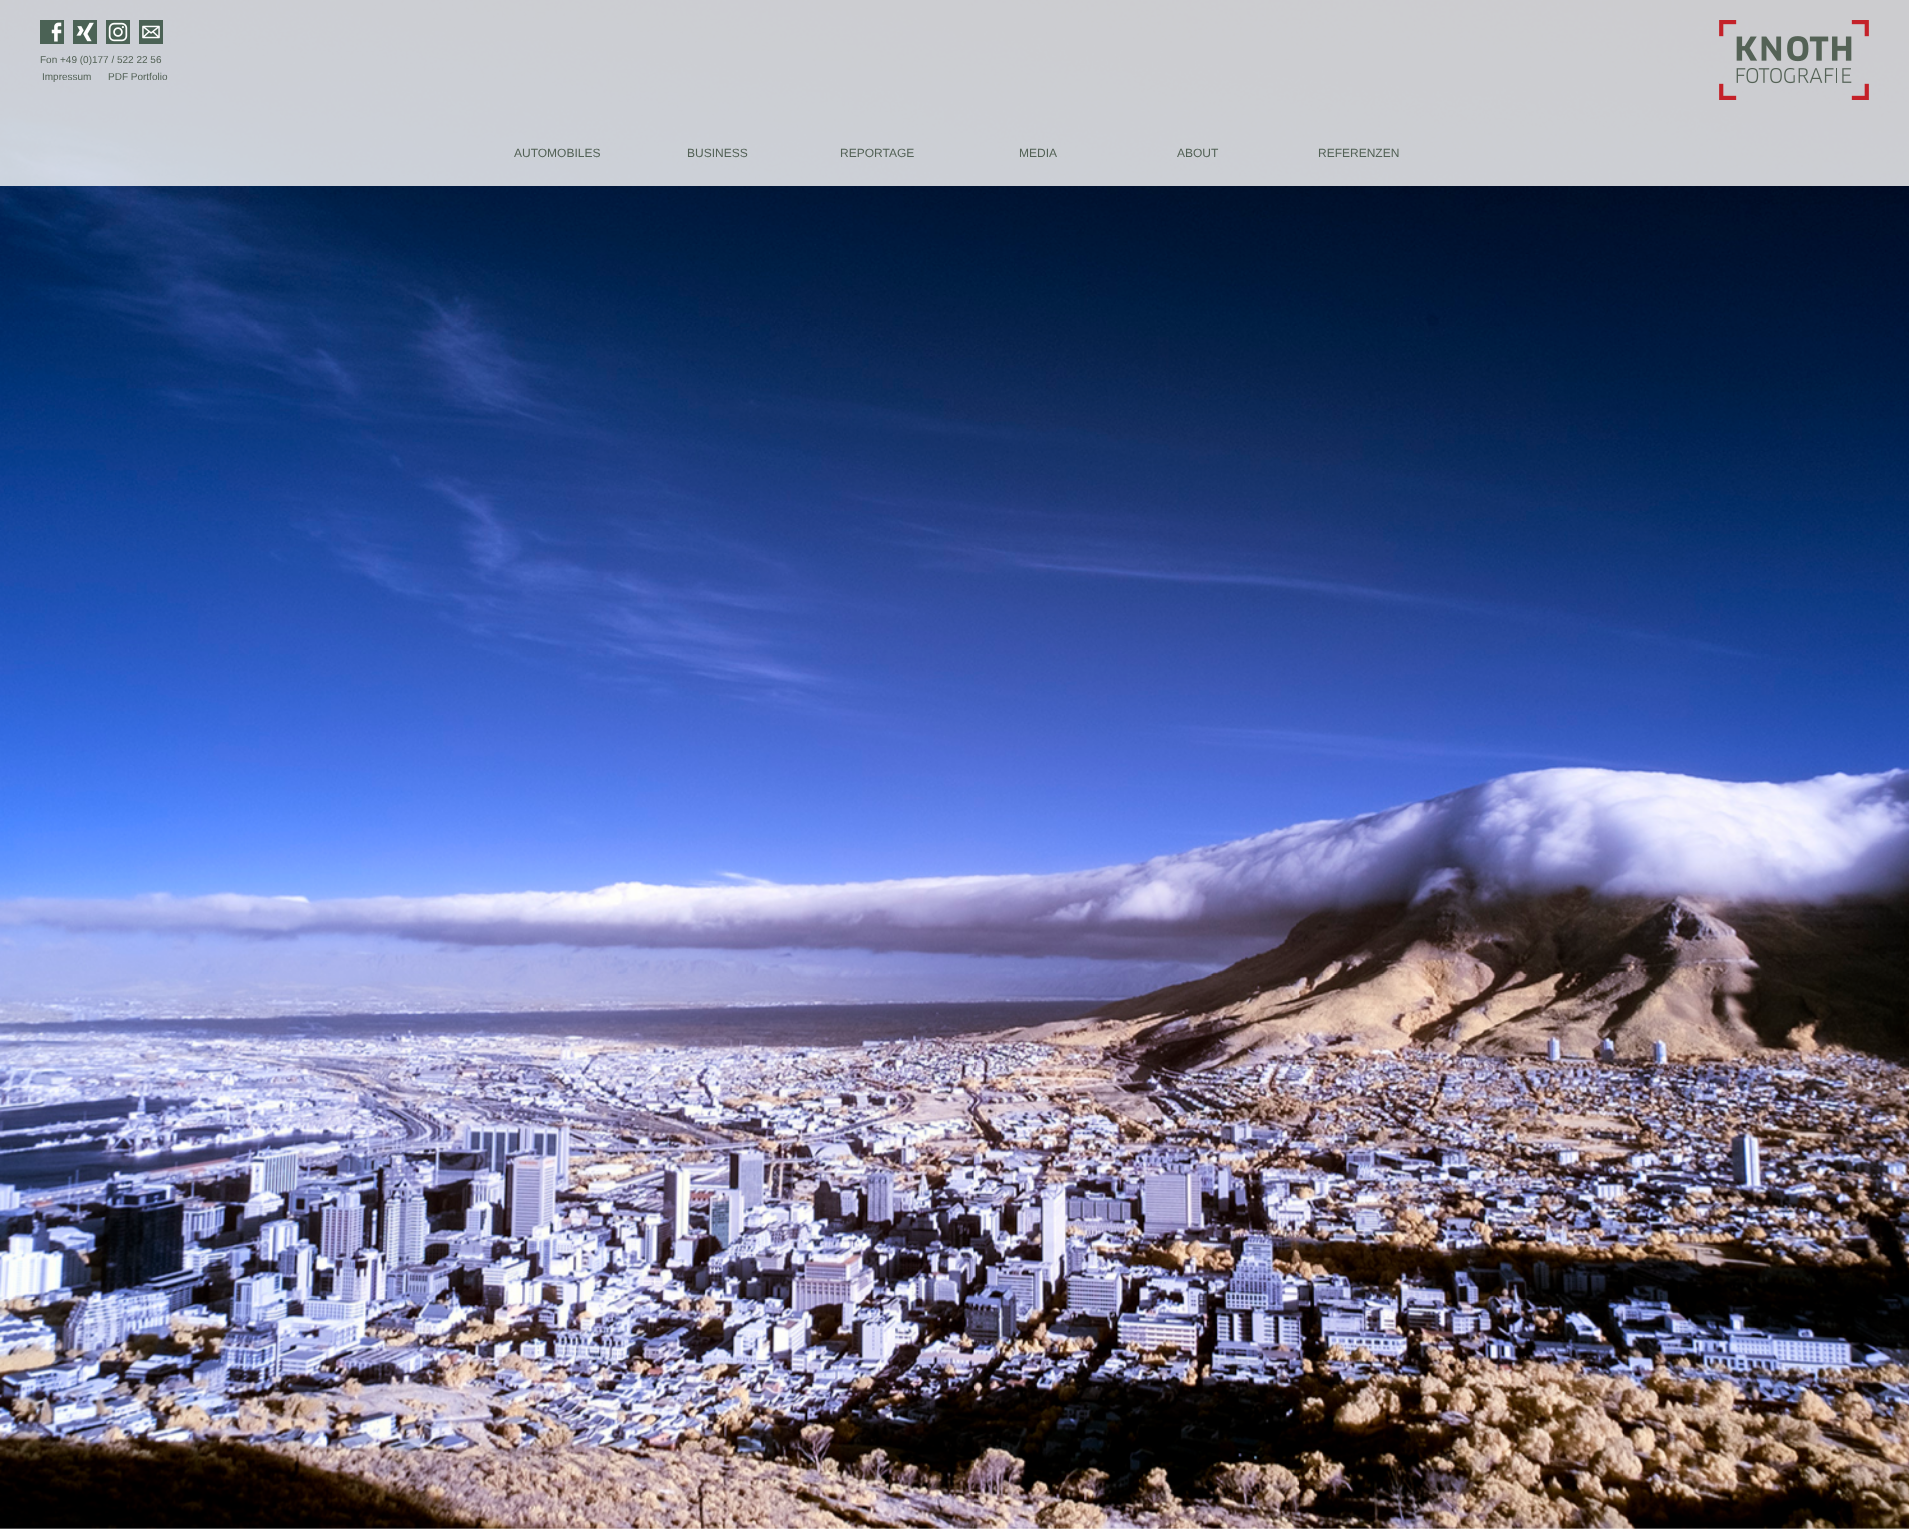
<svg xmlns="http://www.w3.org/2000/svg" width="1909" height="1529">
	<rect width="100%" height="100%" fill="#FFFFFF" />
	<image x="0" y="0" width="1909" height="1529" href="assets/img1.png" />
	<rect x="0" y="0" width="1909" height="186" fill="#FFFFFF" fill-opacity="0.8" />
	<image x="40" y="20" width="24" height="24" href="assets/img2.png" />
	<image x="73" y="20" width="24" height="24" href="assets/img3.png" />
	<image x="106" y="20" width="24" height="24" href="assets/img4.png" />
	<image x="139" y="20" width="24" height="24" href="assets/img5.png" />
	<image x="1719" y="20" width="150" height="80" href="assets/img6.png" />
	<g font-family="Liberation Sans" font-size="10" fill="#536256">
		<text x="40" y="63">Fon +49 (0)177 / 522 22 56</text>
		<text x="42" y="80">Impressum</text>
		<text x="108" y="80">PDF Portfolio</text>
	</g>
	<g font-family="Liberation Sans" font-size="12" fill="#536256">
		<text x="514" y="157">AUTOMOBILES</text>
		<text x="687" y="157">BUSINESS</text>
		<text x="840" y="157">REPORTAGE</text>
		<text x="1019" y="157">MEDIA</text>
		<text x="1177" y="157">ABOUT</text>
		<text x="1318" y="157">REFERENZEN</text>
	</g>
</svg>
